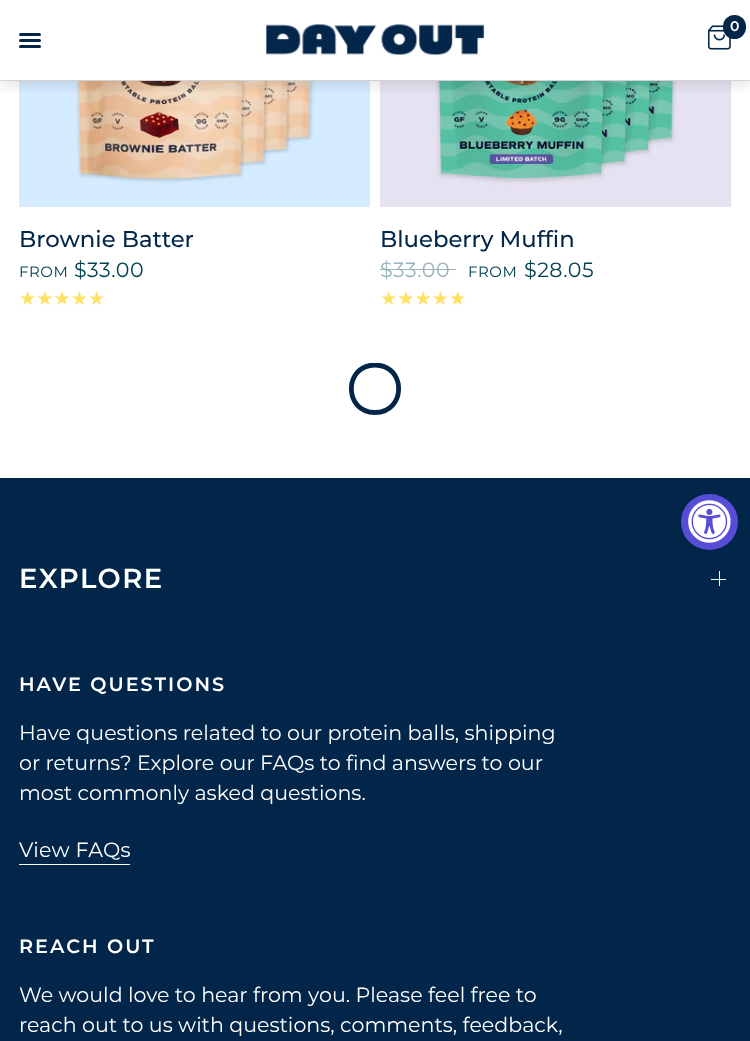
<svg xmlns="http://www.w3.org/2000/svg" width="750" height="1041">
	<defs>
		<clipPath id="clip1"><rect x="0" y="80" width="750" height="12" /></clipPath>
		<linearGradient id="g1" gradientUnits="userSpaceOnUse" x1="19" y1="298" x2="105" y2="298"><stop offset="0.97" stop-color="#FFE166" /><stop offset="0.97" stop-color="#E1E1E1" /></linearGradient>
		<linearGradient id="g2" gradientUnits="userSpaceOnUse" x1="380" y1="298" x2="467" y2="298"><stop offset="1" stop-color="#FFE166" /><stop offset="1" stop-color="#E1E1E1" /></linearGradient>
		<clipPath id="clip2"><rect x="349" y="363" width="52" height="52" /></clipPath>
	</defs>
	<rect width="100%" height="100%" fill="#FFFFFF" />
	<rect x="0" y="80" width="750" height="1" fill="#E4E4E4" />
	<image x="19" y="81" width="351" height="126" href="assets/img3.png" />
	<image x="380" y="81" width="351" height="126" href="assets/img4.png" />
	<g clip-path="url(#clip1)">
		<rect x="0" y="6" width="750" height="80" fill="#000000" fill-opacity="0.1" filter="blur(7.5px)" />
	</g>
	<rect x="19" y="33" width="22" height="3" rx="1.5" fill="#022649" />
	<rect x="19" y="39" width="22" height="3" rx="1.5" fill="#022649" />
	<rect x="19" y="45" width="22" height="3" rx="1.5" fill="#022649" />
	<image x="266" y="24" width="219" height="31" href="assets/img1.png" />
	<image x="708" y="25" width="23" height="25" href="assets/img2.png" />
	<rect x="723" y="15" width="23" height="24" rx="11.5" fill="#022649" />
	<text x="730" y="31" font-family="Montserrat" font-size="14" font-weight="600" fill="#FFFFFF">0</text>
	<text x="19" y="247" font-family="Montserrat" font-size="22.75" font-weight="500" fill="#022649">Brownie Batter</text>
	<text x="19" y="277" font-family="Montserrat" font-size="15" letter-spacing="0.5" fill="#024152">FROM</text>
	<text x="74" y="277" font-family="Montserrat" font-size="20.6" letter-spacing="0.5" fill="#024152">$33.00</text>
	<text x="19" y="305" font-family="DejaVu Sans" font-size="19.25" fill="url(#g1)">★★★★★</text>
	<text x="380" y="247" font-family="Montserrat" font-size="22.75" font-weight="500" fill="#022649">Blueberry Muffin</text>
	<text x="380" y="277" font-family="Montserrat" font-size="20.6" letter-spacing="0.5" fill="#9AB3BA">$33.00</text>
	<rect x="380" y="269" width="76" height="1" fill="#9AB3BA" />
	<text x="468" y="277" font-family="Montserrat" font-size="15" letter-spacing="0.5" fill="#024152">FROM</text>
	<text x="524" y="277" font-family="Montserrat" font-size="20.6" letter-spacing="0.5" fill="#024152">$28.05</text>
	<text x="380" y="305" font-family="DejaVu Sans" font-size="19.25" fill="url(#g2)">★★★★★</text>
	<g clip-path="url(#clip2)">
		<path d="M375 365C406.5 365 406.5 412.5 375 412.5C343.5 412.5 343.5 365 375 365" fill="none" stroke="#022649" stroke-width="4.8" />
	</g>
	<rect x="0" y="478" width="750" height="563" fill="#022649" />
	<text x="19" y="588" font-family="Montserrat" font-size="27.5" font-weight="600" letter-spacing="1.5" fill="#FFFFFF">EXPLORE</text>
	<rect x="719" y="571" width="1" height="15" fill="#FFFFFF" />
	<rect x="711" y="579" width="15" height="1" fill="#FFFFFF" />
	<text x="19" y="691" font-family="Montserrat" font-size="19.25" font-weight="600" letter-spacing="2" fill="#FFFFFF">HAVE QUESTIONS</text>
	<g font-family="Montserrat" font-size="20.6" fill="#FFFFFF">
		<text x="19" y="740">Have questions related to our protein balls, shipping</text>
		<text x="19" y="770">or returns? Explore our FAQs to find answers to our</text>
		<text x="19" y="800">most commonly asked questions.</text>
	</g>
	<text x="19" y="857" font-family="Montserrat" font-size="20.6" letter-spacing="0.25" fill="#FFFFFF">View FAQs</text>
	<rect x="19" y="864" width="111" height="1" fill="#FFFFFF" />
	<text x="19" y="953" font-family="Montserrat" font-size="19.25" font-weight="600" letter-spacing="2" fill="#FFFFFF">REACH OUT</text>
	<g font-family="Montserrat" font-size="20.6" fill="#FFFFFF">
		<text x="19" y="1002">We would love to hear from you. Please feel free to</text>
		<text x="19" y="1032">reach out to us with questions, comments, feedback,</text>
	</g>
	<rect x="681" y="494" width="57" height="56" rx="28" fill="#574CD5" />
	<image x="688" y="500" width="43" height="43" href="assets/img5.png" />
</svg>
